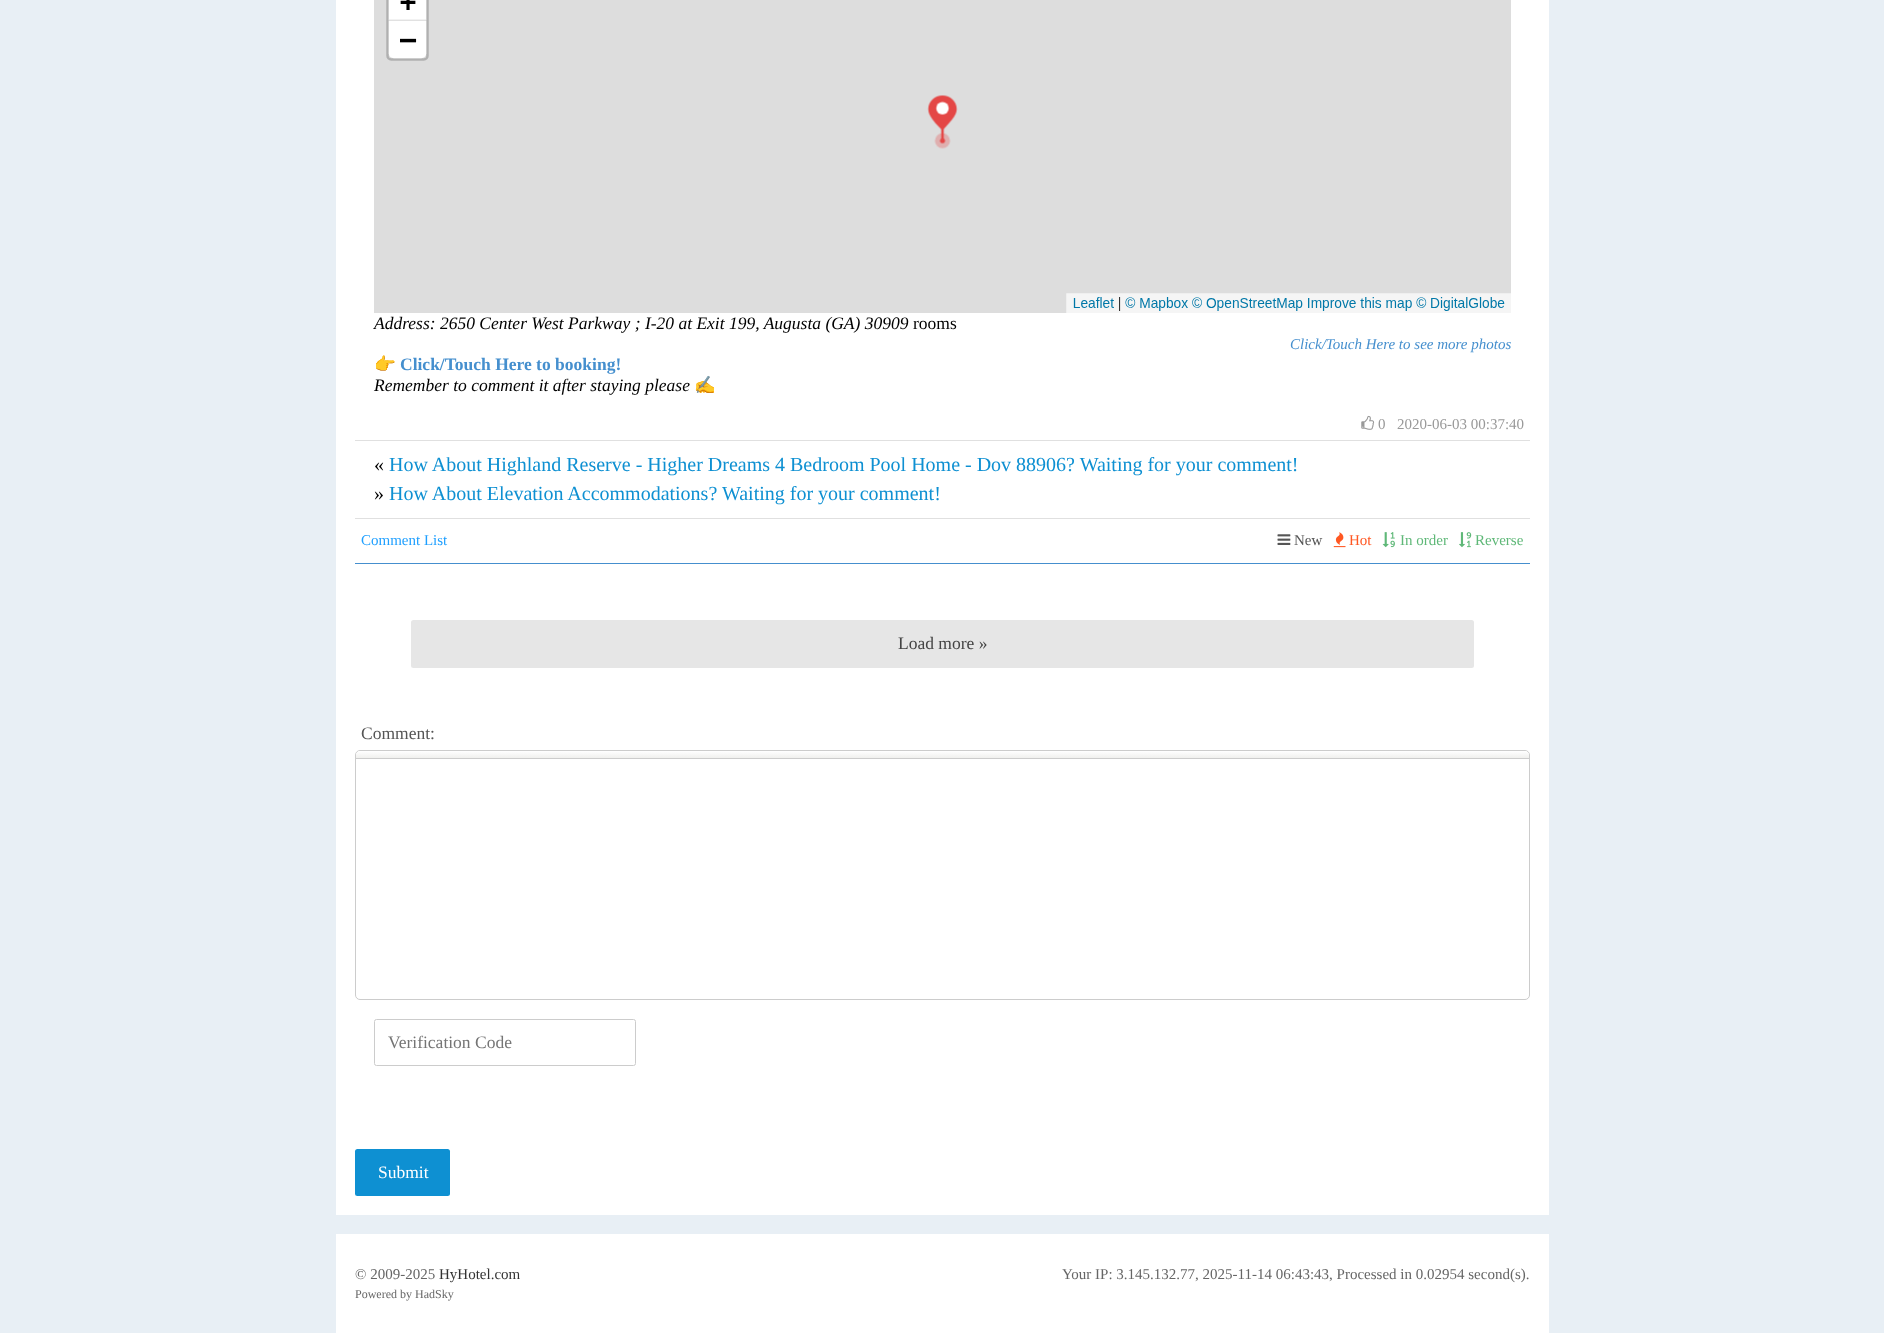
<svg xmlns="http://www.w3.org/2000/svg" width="1884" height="1333">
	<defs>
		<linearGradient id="g1" gradientUnits="userSpaceOnUse" x1="943" y1="758" x2="943" y2="751"><stop offset="0" stop-color="#F0F0EE" /><stop offset="1" stop-color="#FFFFFF" /></linearGradient>
	</defs>
	<rect width="100%" height="100%" fill="#E8EFF5" />
	<rect x="336" y="0" width="1213" height="1215" fill="#FFFFFF" />
	<image x="374" y="0" width="1137" height="313" href="assets/img1.png" />
	<text x="374" y="329" font-family="Liberation Serif" font-size="17.5" font-style="italic" fill="#000000">Address: 2650 Center West Parkway ; I-20 at Exit 199, Augusta (GA) 30909</text>
	<text x="913" y="329" font-family="Liberation Serif" font-size="17.5" fill="#000000">rooms</text>
	<text x="1290" y="349" font-family="Liberation Serif" font-size="15" font-style="italic" fill="#458FCE">Click/Touch Here to see more photos</text>
	<text x="374" y="370" font-family="Noto Color Emoji" font-size="17.5" fill="#000000">👉</text>
	<text x="400" y="370" font-family="Liberation Serif" font-size="17.5" font-weight="700" fill="#458FCE">Click/Touch Here to booking!</text>
	<text x="374" y="391" font-family="Liberation Serif" font-size="17.5" font-style="italic" fill="#000000">Remember to comment it after staying please</text>
	<text x="694" y="391" font-family="Noto Color Emoji" font-size="17.5" fill="#000000">✍️</text>
	<rect x="355" y="440" width="1175" height="1" fill="#E0E0E0" />
	<image x="1361" y="415" width="14" height="15" href="assets/img2.png" />
	<g font-family="Liberation Serif" font-size="15" fill="#999999">
		<text x="1378" y="429">0</text>
		<text x="1397" y="429">2020-06-03 00:37:40</text>
	</g>
	<rect x="355" y="518" width="1175" height="1" fill="#E0E0E0" />
	<text x="374" y="471" font-family="Liberation Serif" font-size="20" fill="#000000">«</text>
	<text x="389" y="471" font-family="Liberation Serif" font-size="20" fill="#0E90D2">How About Highland Reserve - Higher Dreams 4 Bedroom Pool Home - Dov 88906? Waiting for your comment!</text>
	<text x="374" y="500" font-family="Liberation Serif" font-size="20" fill="#000000">»</text>
	<text x="389" y="500" font-family="Liberation Serif" font-size="20" fill="#0E90D2">How About Elevation Accommodations? Waiting for your comment!</text>
	<rect x="355" y="563" width="1175" height="1" fill="#458FCE" />
	<text x="361" y="545" font-family="Liberation Serif" font-size="15" fill="#1E9FFF">Comment List</text>
	<image x="1277" y="534" width="14" height="11" href="assets/img3.png" />
	<text x="1294" y="545" font-family="Liberation Serif" font-size="15" fill="#555555">New</text>
	<image x="1333" y="532" width="13" height="16" href="assets/img4.png" />
	<text x="1349" y="545" font-family="Liberation Serif" font-size="15" fill="#FF5722">Hot</text>
	<image x="1382" y="532" width="13" height="16" href="assets/img5.png" />
	<text x="1400" y="545" font-family="Liberation Serif" font-size="15" fill="#5FB878">In order</text>
	<image x="1459" y="532" width="13" height="16" href="assets/img6.png" />
	<text x="1475" y="545" font-family="Liberation Serif" font-size="15" fill="#5FB878">Reverse</text>
	<rect x="411" y="620" width="1063" height="48" rx="2.5" fill="#E6E6E6" />
	<text x="898" y="649" font-family="Liberation Serif" font-size="17.5" fill="#444444">Load more »</text>
	<text x="361" y="739" font-family="Liberation Serif" font-size="17.5" fill="#555555">Comment:</text>
	<rect x="355.5" y="750.5" width="1174" height="249" rx="4.5" fill="none" stroke="#CCCCCC" />
	<path d="M360 751H1525C1527 751 1529 753 1529 755V758H356V755C356 753 358 751 360 751Z" fill="url(#g1)" />
	<rect x="356" y="758" width="1173" height="1" fill="#CCCCCC" />
	<rect x="374.5" y="1019.5" width="261" height="46" rx="2" fill="none" stroke="#CCCCCC" />
	<text x="388" y="1048" font-family="Liberation Serif" font-size="17.5" fill="#757575">Verification Code</text>
	<rect x="355" y="1149" width="95" height="47" rx="2.5" fill="#0E90D2" />
	<text x="378" y="1178" font-family="Liberation Serif" font-size="17.5" fill="#FFFFFF">Submit</text>
	<rect x="336" y="1234" width="1213" height="99" fill="#FFFFFF" />
	<text x="355" y="1279" font-family="Liberation Serif" font-size="15" fill="#666666">© 2009-2025</text>
	<text x="439" y="1279" font-family="Liberation Serif" font-size="15" fill="#333333">HyHotel.com</text>
	<text x="355" y="1298" font-family="Liberation Serif" font-size="12" fill="#666666">Powered by HadSky</text>
	<text x="1062" y="1279" font-family="Liberation Serif" font-size="15" fill="#666666">Your IP: 3.145.132.77, 2025-11-14 06:43:43, Processed in 0.02954 second(s).</text>
</svg>
